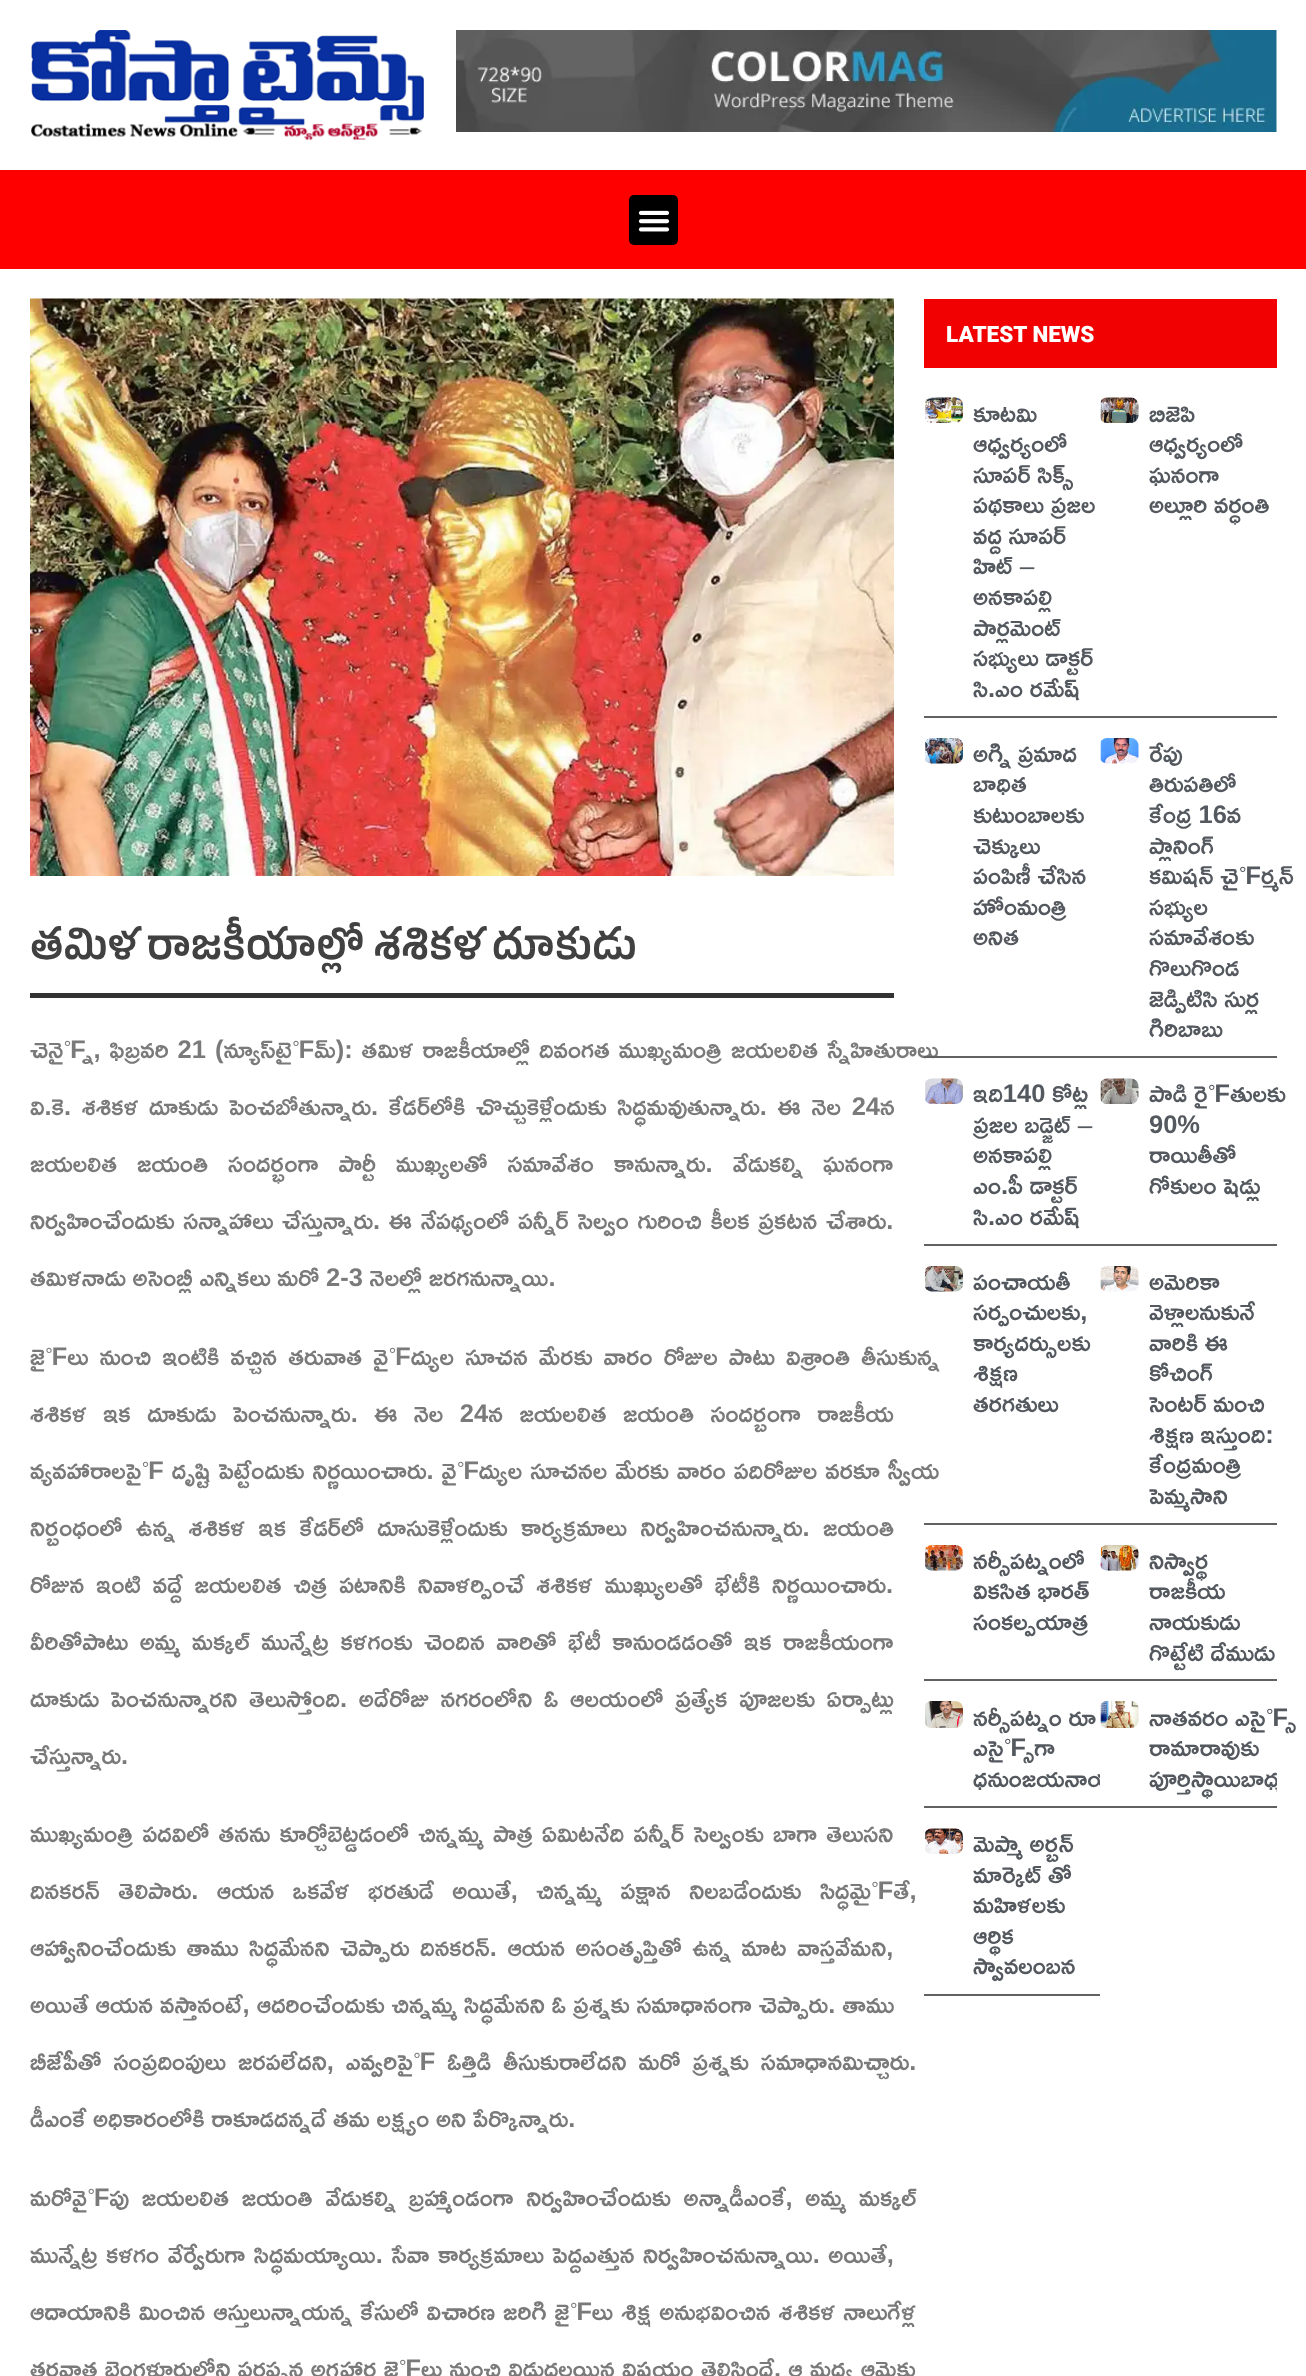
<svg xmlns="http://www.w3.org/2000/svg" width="1306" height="2376">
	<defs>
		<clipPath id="clip1"><rect x="924" y="1701" width="176" height="105" /></clipPath>
		<clipPath id="clip2"><rect x="1100" y="1701" width="177" height="105" /></clipPath>
	</defs>
	<rect width="100%" height="100%" fill="#FFFFFF" />
	<image x="31" y="30" width="394" height="110" href="assets/img1.png" />
	<image x="456" y="30" width="821" height="102" href="assets/img2.png" />
	<rect x="0" y="170" width="1306" height="99" fill="#FF0000" />
	<rect x="629" y="195" width="49" height="50" rx="5" fill="#000000" />
	<image x="638" y="210" width="32" height="22" href="assets/img3.png" />
	<image x="30" y="298" width="864" height="578" href="assets/img4.png" />
	<rect x="30" y="993" width="864" height="5" fill="#333333" />
	<text x="30" y="959" font-family="Anek Telugu" font-size="40.5" font-weight="600" fill="#414141">తమిళ రాజకీయాల్లో శశికళ దూకుడు</text>
	<g font-family="Ramabhadra" font-size="25.5" fill="#7A7A7A">
		<text x="30" y="1058" word-spacing="2.25">చెన్నై, ఫిబ్రవరి 21 (న్యూస్‌టైమ్): తమిళ రాజకీయాల్లో దివంగత ముఖ్యమంత్రి జయలలిత స్నేహితురాలు</text>
		<text x="30" y="1115" word-spacing="4">వి.కె. శశికళ దూకుడు పెంచబోతున్నారు. కేడర్‌లోకి చొచ్చుకెళ్లేందుకు సిద్ధమవుతున్నారు. ఈ నెల 24న</text>
		<text x="30" y="1172" word-spacing="13.25">జయలలిత జయంతి సందర్భంగా పార్టీ ముఖ్యలతో సమావేశం కానున్నారు. వేడుకల్ని ఘనంగా</text>
		<text x="30" y="1229" word-spacing="2">నిర్వహించేందుకు సన్నాహాలు చేస్తున్నారు. ఈ నేపథ్యంలో పన్నీర్ సెల్వం గురించి కీలక ప్రకటన చేశారు.</text>
		<text x="30" y="1286">తమిళనాడు అసెంబ్లీ ఎన్నికలు మరో 2-3 నెలల్లో జరగనున్నాయి.</text>
		<text x="30" y="1365" word-spacing="4.4">జైలు నుంచి ఇంటికి వచ్చిన తరువాత వైద్యుల సూచన మేరకు వారం రోజుల పాటు విశ్రాంతి తీసుకున్న</text>
		<text x="30" y="1422" word-spacing="9.75">శశికళ ఇక దూకుడు పెంచనున్నారు. ఈ నెల 24న జయలలిత జయంతి సందర్బంగా రాజకీయ</text>
		<text x="30" y="1479" word-spacing="1.25">వ్యవహారాలపై దృష్టి పెట్టేందుకు నిర్ణయించారు. వైద్యుల సూచనల మేరకు వారం పదిరోజుల వరకూ స్వీయ</text>
		<text x="30" y="1536" word-spacing="6.75">నిర్బంధంలో ఉన్న శశికళ ఇక కేడర్‌లో దూసుకెళ్లేందుకు కార్యక్రమాలు నిర్వహించనున్నారు. జయంతి</text>
		<text x="30" y="1593" word-spacing="5.25">రోజున ఇంటి వద్దే జయలలిత చిత్ర పటానికి నివాళర్పించే శశికళ ముఖ్యులతో భేటీకి నిర్ణయించారు.</text>
		<text x="30" y="1650" word-spacing="4.75">వీరితోపాటు అమ్మ మక్కల్‌ మున్నేట్ర కళగంకు చెందిన వారితో భేటీ కానుండడంతో ఇక రాజకీయంగా</text>
		<text x="30" y="1707" word-spacing="5">దూకుడు పెంచనున్నారని తెలుస్తోంది. అదేరోజు నగరంలోని ఓ ఆలయంలో ప్రత్యేక పూజలకు ఏర్పాట్లు</text>
		<text x="30" y="1764">చేస్తున్నారు.</text>
		<text x="30" y="1842" word-spacing="2.5">ముఖ్యమంత్రి పదవిలో తనను కూర్చోబెట్డడంలో చిన్నమ్మ పాత్ర ఏమిటనేది పన్నీర్ సెల్వంకు బాగా తెలుసని</text>
		<text x="30" y="1899" word-spacing="11.75">దినకరన్ తెలిపారు. ఆయన ఒకవేళ భరతుడే అయితే, చిన్నమ్మ పక్షాన నిలబడేందుకు సిద్ధమైతే,</text>
		<text x="30" y="1956" word-spacing="3.75">ఆహ్వానించేందుకు తాము సిద్ధమేనని చెప్పారు దినకరన్. ఆయన అసంతృప్తితో ఉన్న మాట వాస్తవేమని,</text>
		<text x="30" y="2013" word-spacing="0.25">అయితే ఆయన వస్తానంటే, ఆదరించేందుకు చిన్నమ్మ సిద్ధమేనని ఓ ప్రశ్నకు సమాధానంగా చెప్పారు. తాము</text>
		<text x="30" y="2070" word-spacing="5.25">బీజేపీతో సంప్రదింపులు జరపలేదని, ఎవ్వరిపై ఓత్తిడి తీసుకురాలేదని మరో ప్రశ్నకు సమాధానమిచ్చారు.</text>
		<text x="30" y="2127">డీఎంకే అధికారంలోకి రాకూడదన్నదే తమ లక్ష్యం అని పేర్కొన్నారు.</text>
		<text x="30" y="2206" word-spacing="6">మరోవైపు జయలలిత జయంతి వేడుకల్ని బ్రహ్మాండంగా నిర్వహించేందుకు అన్నాడీఎంకే, అమ్మ మక్కల్‌</text>
		<text x="30" y="2263" word-spacing="1.75">మున్నేట్ర కళగం వేర్వేరుగా సిద్ధమయ్యాయి. సేవా కార్యక్రమాలు పెద్దఎత్తున నిర్వహించనున్నాయి. అయితే,</text>
		<text x="30" y="2320" word-spacing="1.25">ఆదాయానికి మించిన ఆస్తులున్నాయన్న కేసులో విచారణ జరిగి జైలు శిక్ష అనుభవించిన శశికళ నాలుగేళ్ల</text>
		<text x="30" y="2377" word-spacing="0.5">తరవాత బెంగళూరులోని పరప్పన అగ్రహార జైలు నుంచి విడుదలయిన విషయం తెలిసిందే. ఆ మధ్య ఆమెకు</text>
	</g>
	<rect x="924" y="299" width="353" height="69" fill="#F10101" />
	<text x="946" y="342" font-family="Roboto" font-size="22.5" font-weight="900" fill="#FFFFFF">LATEST NEWS</text>
	<rect x="924" y="716" width="353" height="2" fill="#616161" />
	<image x="925" y="397" width="38" height="26" href="assets/img5.png" />
	<g font-family="Ramabhadra" font-size="25.5" fill="#54595F">
		<text x="973" y="422">కూటమి</text>
		<text x="973" y="452">ఆధ్వర్యంలో</text>
		<text x="973" y="483">సూపర్ సిక్స్</text>
		<text x="973" y="513">పథకాలు ప్రజల</text>
		<text x="973" y="544">వద్ద సూపర్</text>
		<text x="973" y="574">హిట్ –</text>
		<text x="973" y="605">అనకాపల్లి</text>
		<text x="973" y="636">పార్లమెంట్</text>
		<text x="973" y="666">సభ్యులు డాక్టర్</text>
		<text x="973" y="697">సి.ఎం రమేష్</text>
	</g>
	<image x="1100" y="397" width="39" height="26" href="assets/img6.png" />
	<g font-family="Ramabhadra" font-size="25.5" fill="#54595F">
		<text x="1149" y="422">బిజెపి</text>
		<text x="1149" y="452">ఆధ్వర్యంలో</text>
		<text x="1149" y="483">ఘ‌నంగా</text>
		<text x="1149" y="513">అల్లూరి వ‌ర్ధంతి</text>
	</g>
	<rect x="924" y="1056" width="353" height="2" fill="#616161" />
	<image x="925" y="738" width="38" height="26" href="assets/img7.png" />
	<g font-family="Ramabhadra" font-size="25.5" fill="#54595F">
		<text x="973" y="762">అగ్ని ప్రమాద</text>
		<text x="973" y="792">బాధిత</text>
		<text x="973" y="823">కుటుంబాలకు</text>
		<text x="973" y="854">చెక్కులు</text>
		<text x="973" y="884">పంపిణీ చేసిన</text>
		<text x="973" y="915">హోంమంత్రి</text>
		<text x="973" y="945">అనిత</text>
	</g>
	<image x="1100" y="738" width="39" height="26" href="assets/img8.png" />
	<g font-family="Ramabhadra" font-size="25.5" fill="#54595F">
		<text x="1149" y="762">రేపు</text>
		<text x="1149" y="792">తిరుపతిలో</text>
		<text x="1149" y="823">కేంద్ర 16వ</text>
		<text x="1149" y="854">ప్లానింగ్</text>
		<text x="1149" y="884">కమిషన్ చైర్మన్</text>
		<text x="1149" y="915">సభ్యుల</text>
		<text x="1149" y="945">స‌మావేశంకు</text>
		<text x="1149" y="976">గొలుగొండ</text>
		<text x="1149" y="1007">జెడ్పిటిసి సుర్ల</text>
		<text x="1149" y="1037">గిరిబాబు</text>
	</g>
	<rect x="924" y="1244" width="353" height="2" fill="#616161" />
	<image x="925" y="1078" width="38" height="26" href="assets/img9.png" />
	<g font-family="Ramabhadra" font-size="25.5" fill="#54595F">
		<text x="973" y="1102">ఇది140 కోట్ల</text>
		<text x="973" y="1133">ప్రజల బడ్జెట్ –</text>
		<text x="973" y="1163">అనకాపల్లి</text>
		<text x="973" y="1194">ఎం.పీ డాక్టర్</text>
		<text x="973" y="1225">సి.ఎం రమేష్</text>
	</g>
	<image x="1100" y="1078" width="39" height="26" href="assets/img10.png" />
	<g font-family="Ramabhadra" font-size="25.5" fill="#54595F">
		<text x="1149" y="1102">పాడి రైతులకు</text>
		<text x="1149" y="1133">90%</text>
		<text x="1149" y="1163">రాయితీతో</text>
		<text x="1149" y="1194">గోకులం షెడ్లు</text>
	</g>
	<rect x="924" y="1523" width="353" height="2" fill="#616161" />
	<image x="925" y="1266" width="38" height="26" href="assets/img11.png" />
	<g font-family="Ramabhadra" font-size="25.5" fill="#54595F">
		<text x="973" y="1290">పంచాయతీ</text>
		<text x="973" y="1320">సర్పంచులకు,</text>
		<text x="973" y="1351">కార్యదర్సులకు</text>
		<text x="973" y="1381">శిక్షణ</text>
		<text x="973" y="1412">తరగతులు</text>
	</g>
	<image x="1100" y="1266" width="39" height="26" href="assets/img12.png" />
	<g font-family="Ramabhadra" font-size="25.5" fill="#54595F">
		<text x="1149" y="1290">అమెరికా</text>
		<text x="1149" y="1320">వెళ్లాలనుకునే</text>
		<text x="1149" y="1351">వారికి ఈ</text>
		<text x="1149" y="1381">కోచింగ్</text>
		<text x="1149" y="1412">సెంటర్ మంచి</text>
		<text x="1149" y="1443">శిక్షణ ఇస్తుంది:</text>
		<text x="1149" y="1473">కేంద్రమంత్రి</text>
		<text x="1149" y="1504">పెమ్మసాని</text>
	</g>
	<rect x="924" y="1679" width="353" height="2" fill="#616161" />
	<image x="925" y="1545" width="38" height="26" href="assets/img13.png" />
	<g font-family="Ramabhadra" font-size="25.5" fill="#54595F">
		<text x="973" y="1569">నర్సీపట్నంలో</text>
		<text x="973" y="1599">వికసిత భారత్</text>
		<text x="973" y="1630">సంకల్పయాత్ర</text>
	</g>
	<image x="1100" y="1545" width="39" height="26" href="assets/img14.png" />
	<g font-family="Ramabhadra" font-size="25.5" fill="#54595F">
		<text x="1149" y="1569">నిస్వార్థ</text>
		<text x="1149" y="1599">రాజకీయ</text>
		<text x="1149" y="1630">నాయకుడు</text>
		<text x="1149" y="1661">గొట్టేటి దేముడు</text>
	</g>
	<rect x="924" y="1806" width="353" height="2" fill="#616161" />
	<image x="925" y="1701" width="38" height="27" href="assets/img15.png" />
	<g font-family="Ramabhadra" font-size="25.5" fill="#54595F">
		<text x="973" y="1726">నర్సీపట్నం రూ</text>
		<text x="973" y="1756">ఎస్సైగా</text>
	</g>
	<g clip-path="url(#clip1)">
		<text x="973" y="1787" font-family="Ramabhadra" font-size="25.5" fill="#54595F">ధనుంజయనాయ</text>
	</g>
	<image x="1100" y="1701" width="39" height="27" href="assets/img16.png" />
	<g font-family="Ramabhadra" font-size="25.5" fill="#54595F">
		<text x="1149" y="1726">నాతవరం ఎస్సై</text>
		<text x="1149" y="1756">రామారావుకు</text>
	</g>
	<g clip-path="url(#clip2)">
		<text x="1149" y="1787" font-family="Ramabhadra" font-size="25.5" fill="#54595F">పూర్తిస్థాయిబాధ్య</text>
	</g>
	<rect x="924" y="1994" width="176" height="2" fill="#616161" />
	<image x="925" y="1828" width="38" height="26" href="assets/img17.png" />
	<g font-family="Ramabhadra" font-size="25.5" fill="#54595F">
		<text x="973" y="1852">మెప్మా అర్బన్</text>
		<text x="973" y="1883">మార్కెట్ తో</text>
		<text x="973" y="1913">మహిళలకు</text>
		<text x="973" y="1944">ఆర్థిక</text>
		<text x="973" y="1974">స్వావలంబన</text>
	</g>
</svg>
